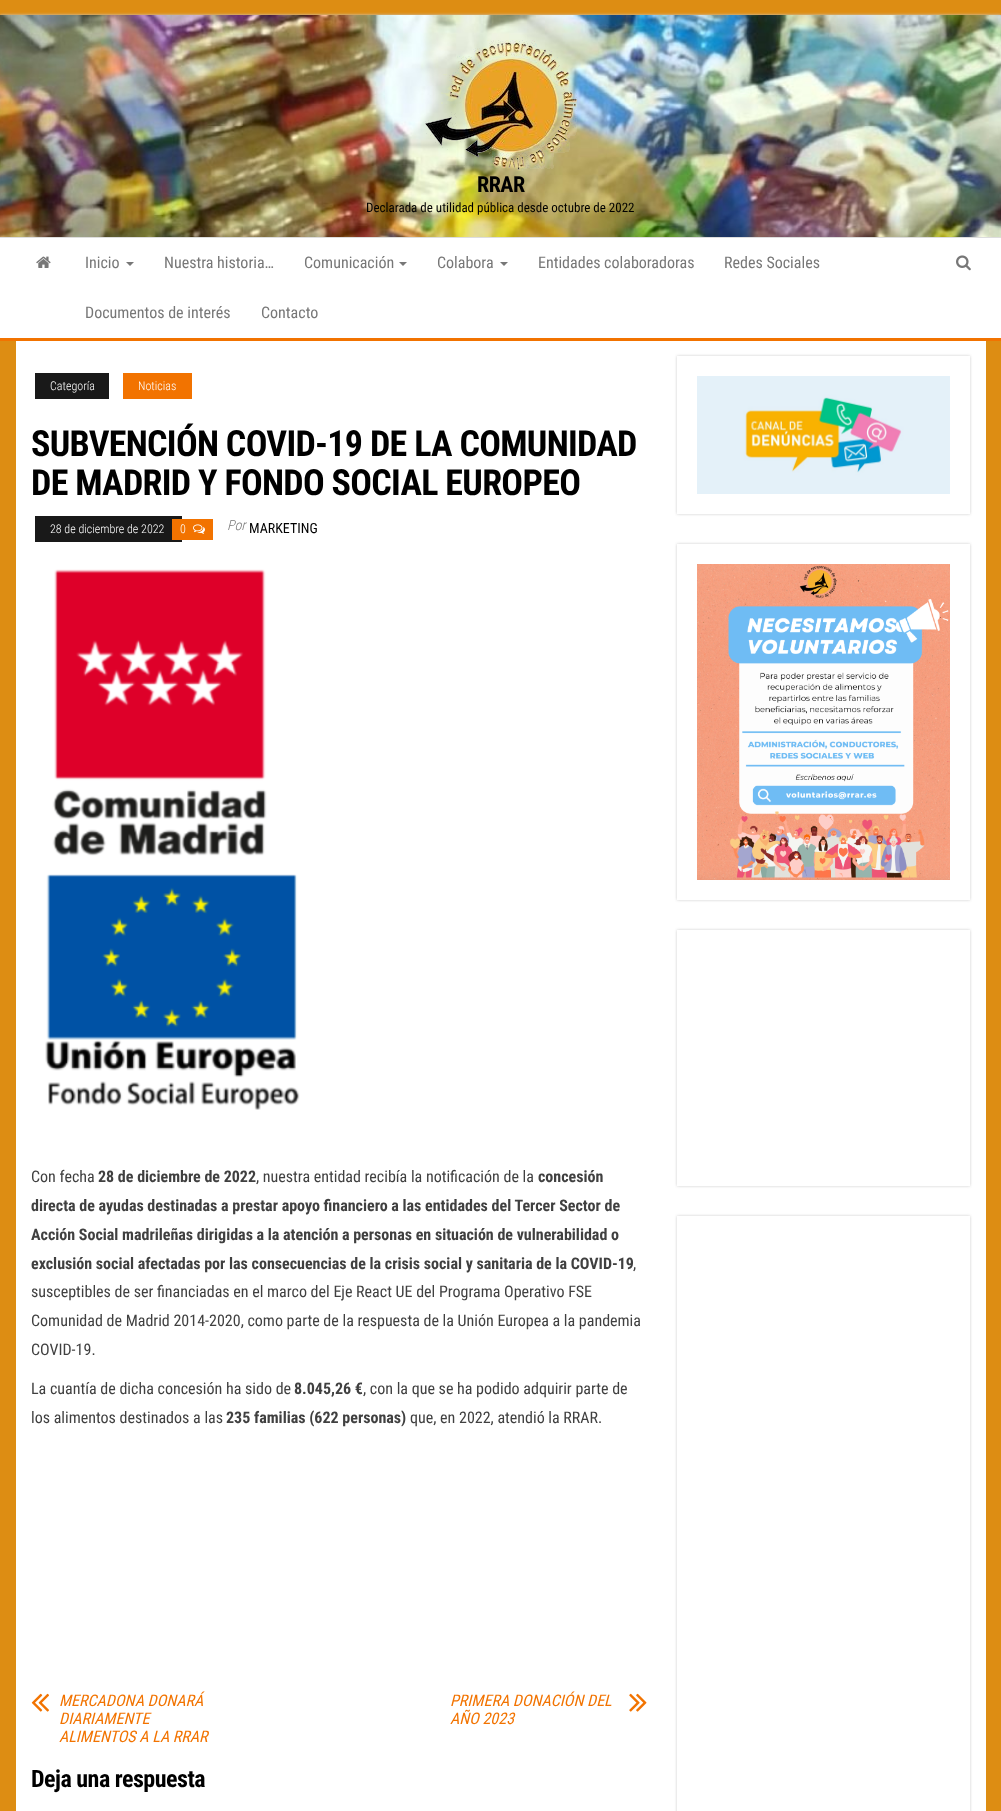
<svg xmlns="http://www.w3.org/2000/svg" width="1001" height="1811">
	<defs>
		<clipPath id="clip1"><rect x="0" y="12" width="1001" height="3" /></clipPath>
		<clipPath id="clip2"><path d="M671 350H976V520H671ZM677 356H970V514H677Z" clip-rule="evenodd" /></clipPath>
		<clipPath id="clip3"><path d="M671 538H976V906H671ZM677 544H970V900H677Z" clip-rule="evenodd" /></clipPath>
		<clipPath id="clip4"><path d="M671 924H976V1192H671ZM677 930H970V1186H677Z" clip-rule="evenodd" /></clipPath>
		<clipPath id="clip5"><path d="M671 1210H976V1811H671ZM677 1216H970V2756H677Z" clip-rule="evenodd" /></clipPath>
	</defs>
	<rect width="100%" height="100%" fill="#DD8D13" />
	<g clip-path="url(#clip1)">
		<rect x="0" y="15" width="1001" height="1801" fill="#CACACA" filter="blur(1.5px)" />
	</g>
	<image x="0" y="15" width="1001" height="222" href="assets/img1.png" />
	<image x="425" y="40" width="152" height="131" href="assets/img2.png" />
	<text x="477" y="192" font-family="Roboto Condensed" font-size="22" font-weight="700" letter-spacing="-0.5" fill="#000000">RRAR</text>
	<text x="366" y="212" font-family="Roboto Condensed" font-size="13" fill="#000000">Declarada de utilidad pública desde octubre de 2022</text>
	<rect x="0" y="238" width="1001" height="100" fill="#FFFFFF" />
	<rect x="0" y="237" width="1001" height="1" fill="#DDDDDD" />
	<rect x="0" y="338" width="1001" height="3" fill="#F27300" />
	<image x="36" y="256" width="15" height="12" href="assets/img3.png" />
	<text x="85" y="268" font-family="Roboto Condensed" font-size="16" fill="#777777">Inicio</text>
	<path d="M126 262H134L130 266Z" fill="#777777" />
	<g font-family="Roboto Condensed" font-size="16" fill="#777777">
		<text x="164" y="268">Nuestra historia…</text>
		<text x="304" y="268">Comunicación</text>
	</g>
	<path d="M399 262H407L403 266Z" fill="#777777" />
	<text x="437" y="268" font-family="Roboto Condensed" font-size="16" fill="#777777">Colabora</text>
	<path d="M500 262H508L504 266Z" fill="#777777" />
	<g font-family="Roboto Condensed" font-size="16" fill="#777777">
		<text x="538" y="268">Entidades colaboradoras</text>
		<text x="724" y="268">Redes Sociales</text>
		<text x="85" y="318">Documentos de interés</text>
		<text x="261" y="318">Contacto</text>
	</g>
	<image x="956" y="255" width="15" height="16" href="assets/img4.png" />
	<rect x="16" y="341" width="970" height="1470" fill="#FFFFFF" />
	<rect x="35" y="373" width="74" height="26" fill="#191919" />
	<text x="50" y="390" font-family="Roboto Condensed" font-size="12" font-weight="300" fill="#FFFFFF">Categoría</text>
	<rect x="123" y="373" width="69" height="26" fill="#F27300" />
	<text x="138" y="390" font-family="Roboto Condensed" font-size="12" font-weight="300" fill="#FFFFFF">Noticias</text>
	<g font-family="Roboto Condensed" font-size="36" font-weight="700" letter-spacing="-0.7" fill="#000000">
		<text x="31" y="456">SUBVENCIÓN COVID-19 DE LA COMUNIDAD</text>
		<text x="31" y="495">DE MADRID Y FONDO SOCIAL EUROPEO</text>
	</g>
	<rect x="35" y="516" width="147" height="26" fill="#191919" />
	<text x="50" y="533" font-family="Roboto Condensed" font-size="12" font-weight="300" fill="#FFFFFF">28 de diciembre de 2022</text>
	<rect x="172" y="519" width="41" height="21" fill="#F27300" />
	<text x="180" y="533" font-family="Roboto Condensed" font-size="12" font-weight="300" fill="#FFFFFF">0</text>
	<image x="193" y="524" width="12" height="10" href="assets/img5.png" />
	<text x="227" y="530" font-family="Roboto Condensed" font-size="14" font-weight="300" font-style="italic" fill="#777777">Por</text>
	<text x="249" y="533" font-family="Roboto Condensed" font-size="14" fill="#000000">MARKETING</text>
	<image x="52" y="569" width="215" height="287" href="assets/img6.png" />
	<image x="45" y="874" width="255" height="236" href="assets/img7.png" />
	<text x="31" y="1182" font-family="Roboto Condensed" font-size="16" fill="#404040">Con fecha</text>
	<text x="98" y="1182" font-family="Roboto Condensed" font-size="16" font-weight="700" fill="#404040">28 de diciembre de 2022</text>
	<text x="256" y="1182" font-family="Roboto Condensed" font-size="16" fill="#404040">, nuestra entidad recibía la notificación de la</text>
	<g font-family="Roboto Condensed" font-size="16" font-weight="700" fill="#404040">
		<text x="538" y="1182">concesión</text>
		<text x="31" y="1211">directa de ayudas destinadas a prestar apoyo financiero a las entidades del Tercer Sector de</text>
		<text x="31" y="1240">Acción Social madrileñas dirigidas a la atención a personas en situación de vulnerabilidad o</text>
		<text x="31" y="1269">exclusión social afectadas por las consecuencias de la crisis social y sanitaria de la COVID-19</text>
	</g>
	<g font-family="Roboto Condensed" font-size="16" fill="#404040">
		<text x="633" y="1269">,</text>
		<text x="31" y="1297">susceptibles de ser financiadas en el marco del Eje React UE del Programa Operativo FSE</text>
		<text x="31" y="1326">Comunidad de Madrid 2014-2020, como parte de la respuesta de la Unión Europea a la pandemia</text>
		<text x="31" y="1355">COVID-19.</text>
		<text x="31" y="1394">La cuantía de dicha concesión ha sido de</text>
	</g>
	<text x="294" y="1394" font-family="Roboto Condensed" font-size="16" font-weight="700" fill="#404040">8.045,26 €</text>
	<g font-family="Roboto Condensed" font-size="16" fill="#404040">
		<text x="363" y="1394">, con la que se ha podido adquirir parte de</text>
		<text x="31" y="1423">los alimentos destinados a las</text>
	</g>
	<text x="226" y="1423" font-family="Roboto Condensed" font-size="16" font-weight="700" fill="#404040">235 familias (622 personas)</text>
	<text x="410" y="1423" font-family="Roboto Condensed" font-size="16" fill="#404040">que, en 2022, atendió la RRAR.</text>
	<image x="31" y="1693" width="18" height="19" href="assets/img8.png" />
	<g font-family="Roboto Condensed" font-size="16" font-style="italic" fill="#F27300">
		<text x="59" y="1706">MERCADONA DONARÁ</text>
		<text x="59" y="1724">DIARIAMENTE</text>
		<text x="59" y="1742">ALIMENTOS A LA RRAR</text>
		<text x="450" y="1706">PRIMERA DONACIÓN DEL</text>
		<text x="450" y="1724">AÑO 2023</text>
	</g>
	<image x="629" y="1693" width="18" height="19" href="assets/img9.png" />
	<text x="31" y="1787" font-family="Roboto Condensed" font-size="24" font-weight="700" letter-spacing="-0.5" fill="#000000">Deja una respuesta</text>
	<g clip-path="url(#clip2)">
		<rect x="677" y="356" width="293" height="158" fill="#CACACA" filter="blur(1.5px)" />
	</g>
	<image x="697" y="376" width="253" height="118" href="assets/img10.png" />
	<g clip-path="url(#clip3)">
		<rect x="677" y="544" width="293" height="356" fill="#CACACA" filter="blur(1.5px)" />
	</g>
	<image x="697" y="564" width="253" height="316" href="assets/img11.png" />
	<g clip-path="url(#clip4)">
		<rect x="677" y="930" width="293" height="256" fill="#CACACA" filter="blur(1.5px)" />
	</g>
	<g clip-path="url(#clip5)">
		<rect x="677" y="1216" width="293" height="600" fill="#CACACA" filter="blur(1.5px)" />
	</g>
</svg>
